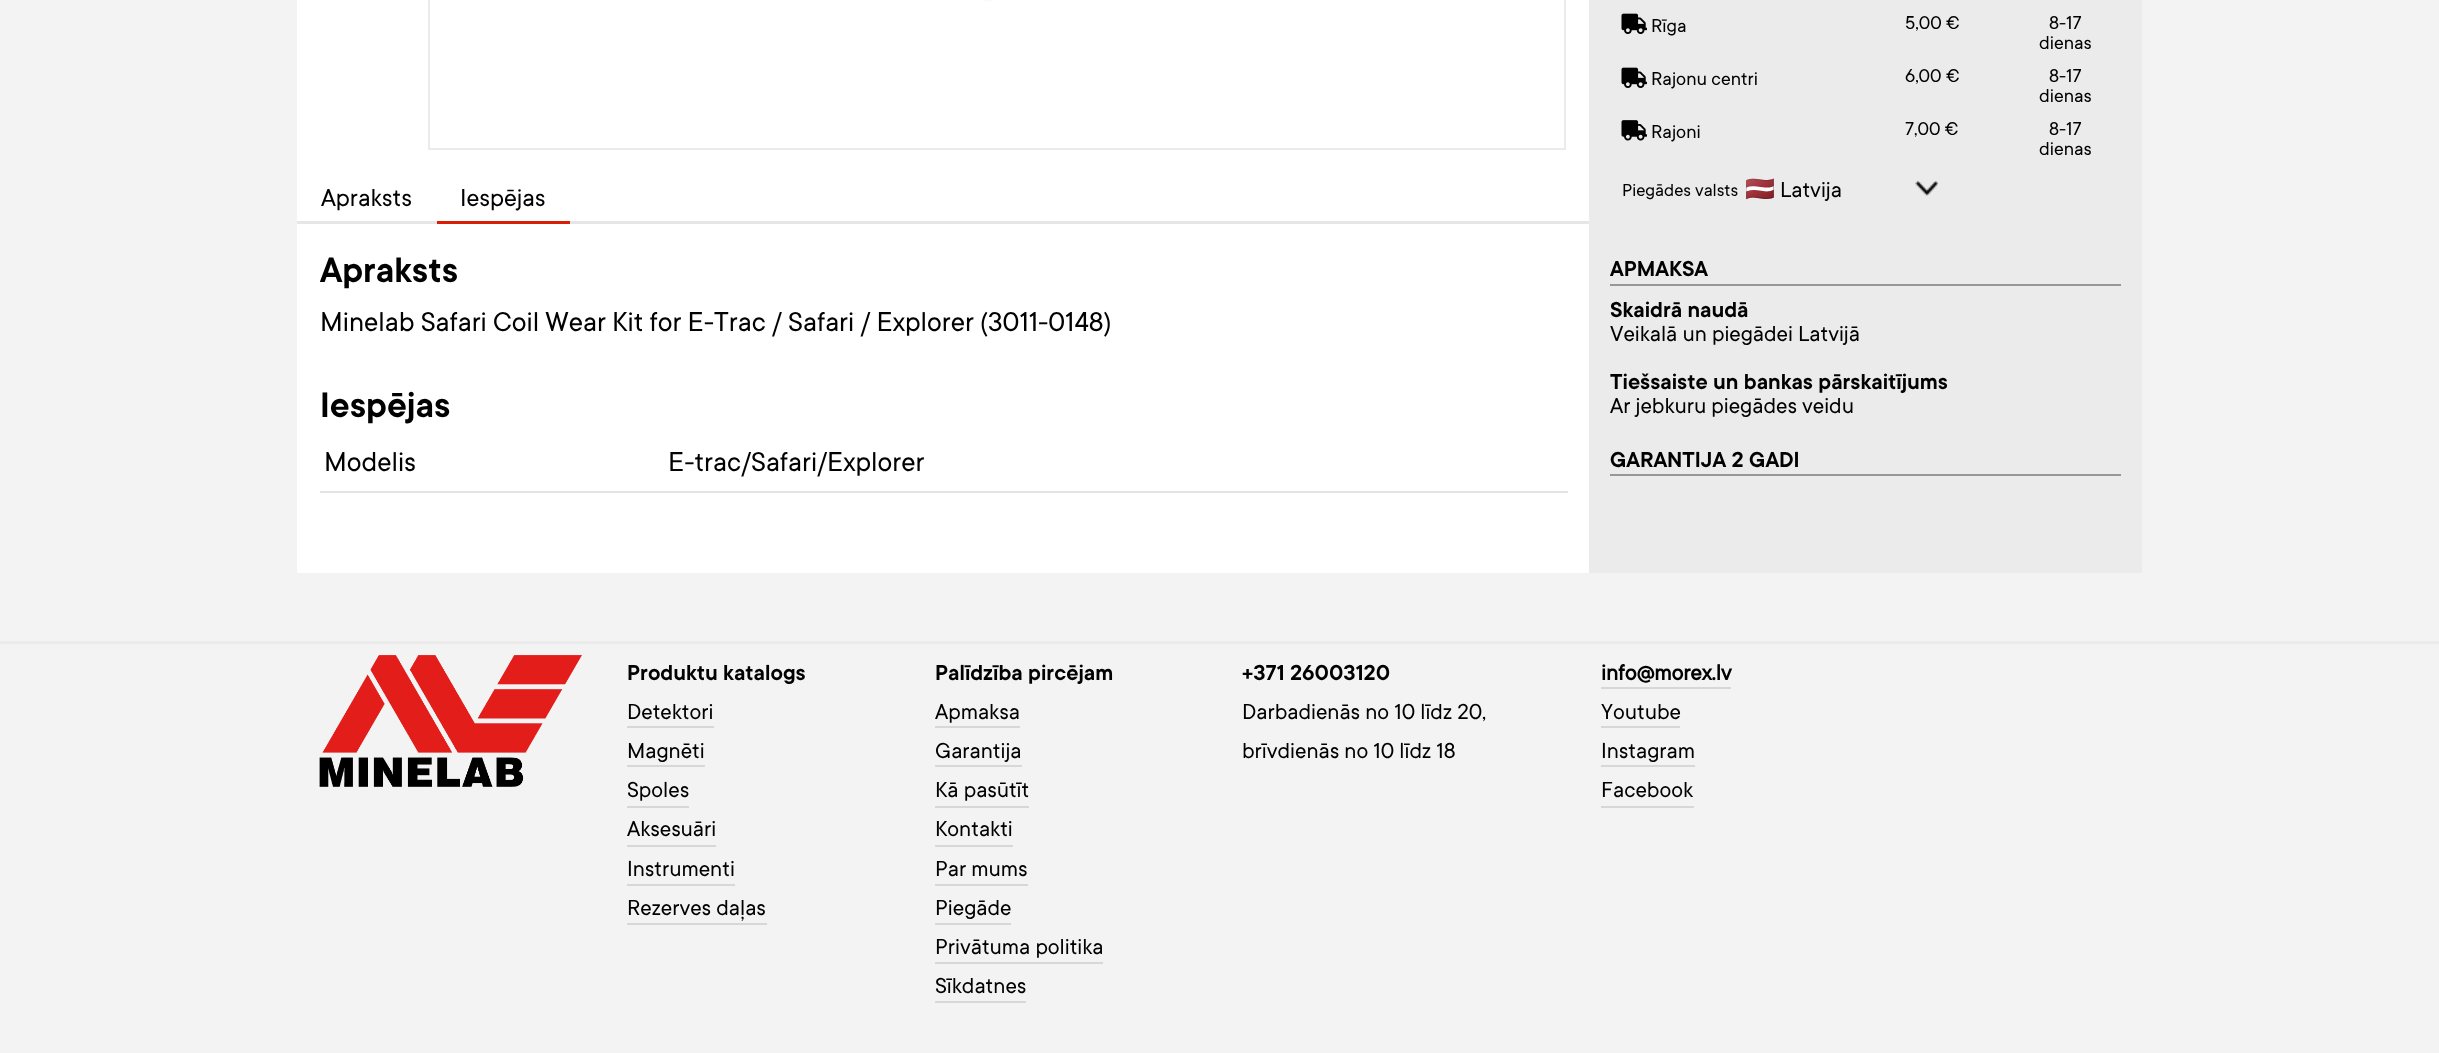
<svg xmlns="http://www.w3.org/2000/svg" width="2439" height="1053">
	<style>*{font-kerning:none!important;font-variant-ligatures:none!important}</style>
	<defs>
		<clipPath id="clip1"><rect x="1745" y="177" width="163" height="30" /></clipPath>
	</defs>
	<rect width="100%" height="100%" fill="#F3F3F3" />
	<rect x="1589" y="0" width="553" height="573" fill="#EBEBEB" />
	<rect x="297" y="0" width="1292" height="573" fill="#FFFFFF" />
	<rect x="429" y="-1" width="1136" height="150" fill="none" stroke="#EBEBEB" stroke-width="2" />
	<rect x="984" y="0" width="8" height="1" fill="#FAFAFA" />
	<rect x="297" y="221" width="1292" height="3" fill="#E6E6E6" />
	<g font-family="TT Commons" font-size="27" fill="#020101">
		<text x="321" y="206">Apraksts</text>
		<text x="460" y="206">Iespējas</text>
	</g>
	<rect x="437" y="221" width="133" height="3" fill="#D81F06" />
	<text x="320" y="282" font-family="TT Commons" font-size="39" font-weight="600" fill="#020101">Apraksts</text>
	<text x="320" y="331" word-spacing="-0.25" font-family="TT Commons" font-size="30" fill="#020101">Minelab Safari Coil Wear Kit for E-Trac / Safari / Explorer (3011-0148)</text>
	<text x="320" y="417" font-family="TT Commons" font-size="39" font-weight="600" fill="#020101">Iespējas</text>
	<text x="324" y="471" font-family="TT Commons" font-size="30" fill="#020101">Modelis</text>
	<rect x="320" y="491" width="1248" height="2" fill="#E4E4E4" />
	<text x="668" y="471" font-family="TT Commons" font-size="30" fill="#020101">E-trac/Safari/Explorer</text>
	<image x="1621" y="13" width="26" height="21" href="assets/img1.png" />
	<g font-family="TT Commons" font-size="20.5" fill="#020101">
		<text x="1651" y="32">Rīga</text>
		<text x="1905" y="29">5,00 €</text>
		<text x="2049" y="29">8-17</text>
		<text x="2039" y="49">dienas</text>
	</g>
	<image x="1621" y="67" width="26" height="21" href="assets/img1.png" />
	<g font-family="TT Commons" font-size="20.5" fill="#020101">
		<text x="1651" y="85">Rajonu centri</text>
		<text x="1905" y="82">6,00 €</text>
		<text x="2049" y="82">8-17</text>
		<text x="2039" y="102">dienas</text>
	</g>
	<image x="1621" y="120" width="26" height="21" href="assets/img2.png" />
	<g font-family="TT Commons" font-size="20.5" fill="#020101">
		<text x="1651" y="138">Rajoni</text>
		<text x="1905" y="135">7,00 €</text>
		<text x="2049" y="135">8-17</text>
		<text x="2039" y="155">dienas</text>
	</g>
	<text x="1622" y="196" font-family="TT Commons" font-size="19.25" fill="#020101">Piegādes valsts</text>
	<image x="1915" y="181" width="23" height="15" href="assets/img3.png" />
	<g clip-path="url(#clip1)">
		<text x="1745" y="197" font-family="Noto Color Emoji" font-size="24" fill="#020101">🇱🇻</text>
	</g>
	<text x="1780" y="197" font-family="TT Commons" font-size="24" fill="#020101">Latvija</text>
	<rect x="1610" y="284" width="511" height="2" fill="#979797" />
	<g font-family="TT Commons" font-size="24" font-weight="600" fill="#020101">
		<text x="1610" y="276">APMAKSA</text>
		<text x="1610" y="317">Skaidrā naudā</text>
	</g>
	<text x="1610" y="341" font-family="TT Commons" font-size="24" fill="#020101">Veikalā un piegādei Latvijā</text>
	<text x="1610" y="389" font-family="TT Commons" font-size="24" font-weight="600" fill="#020101">Tiešsaiste un bankas pārskaitījums</text>
	<text x="1610" y="413" font-family="TT Commons" font-size="24" fill="#020101">Ar jebkuru piegādes veidu</text>
	<rect x="1610" y="474" width="511" height="2" fill="#979797" />
	<text x="1610" y="467" font-family="TT Commons" font-size="24" font-weight="600" fill="#020101">GARANTIJA 2 GADI</text>
	<rect x="0" y="641" width="2439" height="3" fill="#EBEBEB" />
	<image x="319" y="655" width="263" height="132" href="assets/img4.png" />
	<text x="627" y="680" font-family="TT Commons" font-size="24" font-weight="600" fill="#020101">Produktu katalogs</text>
	<text x="627" y="719" font-family="TT Commons" font-size="24" fill="#020101">Detektori</text>
	<rect x="627" y="726" width="87" height="2" fill="#D7D7D7" />
	<text x="627" y="758" font-family="TT Commons" font-size="24" fill="#020101">Magnēti</text>
	<rect x="627" y="765" width="78" height="2" fill="#D7D7D7" />
	<text x="627" y="797" font-family="TT Commons" font-size="24" fill="#020101">Spoles</text>
	<rect x="627" y="806" width="62" height="2" fill="#D7D7D7" />
	<text x="627" y="836" font-family="TT Commons" font-size="24" fill="#020101">Aksesuāri</text>
	<rect x="627" y="845" width="89" height="2" fill="#D7D7D7" />
	<text x="627" y="876" font-family="TT Commons" font-size="24" fill="#020101">Instrumenti</text>
	<rect x="627" y="884" width="108" height="2" fill="#D7D7D7" />
	<text x="627" y="915" font-family="TT Commons" font-size="24" fill="#020101">Rezerves daļas</text>
	<rect x="627" y="923" width="140" height="2" fill="#D7D7D7" />
	<text x="935" y="680" font-family="TT Commons" font-size="24" font-weight="600" fill="#020101">Palīdzība pircējam</text>
	<text x="935" y="719" font-family="TT Commons" font-size="24" fill="#020101">Apmaksa</text>
	<rect x="935" y="726" width="85" height="2" fill="#D7D7D7" />
	<text x="935" y="758" font-family="TT Commons" font-size="24" fill="#020101">Garantija</text>
	<rect x="935" y="765" width="87" height="2" fill="#D7D7D7" />
	<text x="935" y="797" font-family="TT Commons" font-size="24" fill="#020101">Kā pasūtīt</text>
	<rect x="935" y="806" width="94" height="2" fill="#D7D7D7" />
	<text x="935" y="836" font-family="TT Commons" font-size="24" fill="#020101">Kontakti</text>
	<rect x="935" y="845" width="78" height="2" fill="#D7D7D7" />
	<text x="935" y="876" font-family="TT Commons" font-size="24" fill="#020101">Par mums</text>
	<rect x="935" y="884" width="93" height="2" fill="#D7D7D7" />
	<text x="935" y="915" font-family="TT Commons" font-size="24" fill="#020101">Piegāde</text>
	<rect x="935" y="923" width="76" height="2" fill="#D7D7D7" />
	<text x="935" y="954" font-family="TT Commons" font-size="24" fill="#020101">Privātuma politika</text>
	<rect x="935" y="962" width="168" height="2" fill="#D7D7D7" />
	<text x="935" y="993" font-family="TT Commons" font-size="24" fill="#020101">Sīkdatnes</text>
	<rect x="935" y="1001" width="91" height="2" fill="#D7D7D7" />
	<text x="1242" y="680" font-family="TT Commons" font-size="24" font-weight="600" fill="#020101">+371 26003120</text>
	<g font-family="TT Commons" font-size="24" fill="#020101">
		<text x="1242" y="719">Darbadienās no 10 līdz 20,</text>
		<text x="1242" y="758">brīvdienās no 10 līdz 18</text>
	</g>
	<text x="1601" y="680" font-family="TT Commons" font-size="24" font-weight="700" fill="#020101">info@morex.lv</text>
	<rect x="1601" y="687" width="130" height="2" fill="#D7D7D7" />
	<text x="1601" y="719" font-family="TT Commons" font-size="24" fill="#020101">Youtube</text>
	<rect x="1601" y="726" width="79" height="2" fill="#D7D7D7" />
	<text x="1601" y="758" font-family="TT Commons" font-size="24" fill="#020101">Instagram</text>
	<rect x="1601" y="765" width="94" height="2" fill="#D7D7D7" />
	<text x="1601" y="797" font-family="TT Commons" font-size="24" fill="#020101">Facebook</text>
	<rect x="1601" y="806" width="93" height="2" fill="#D7D7D7" />
</svg>
